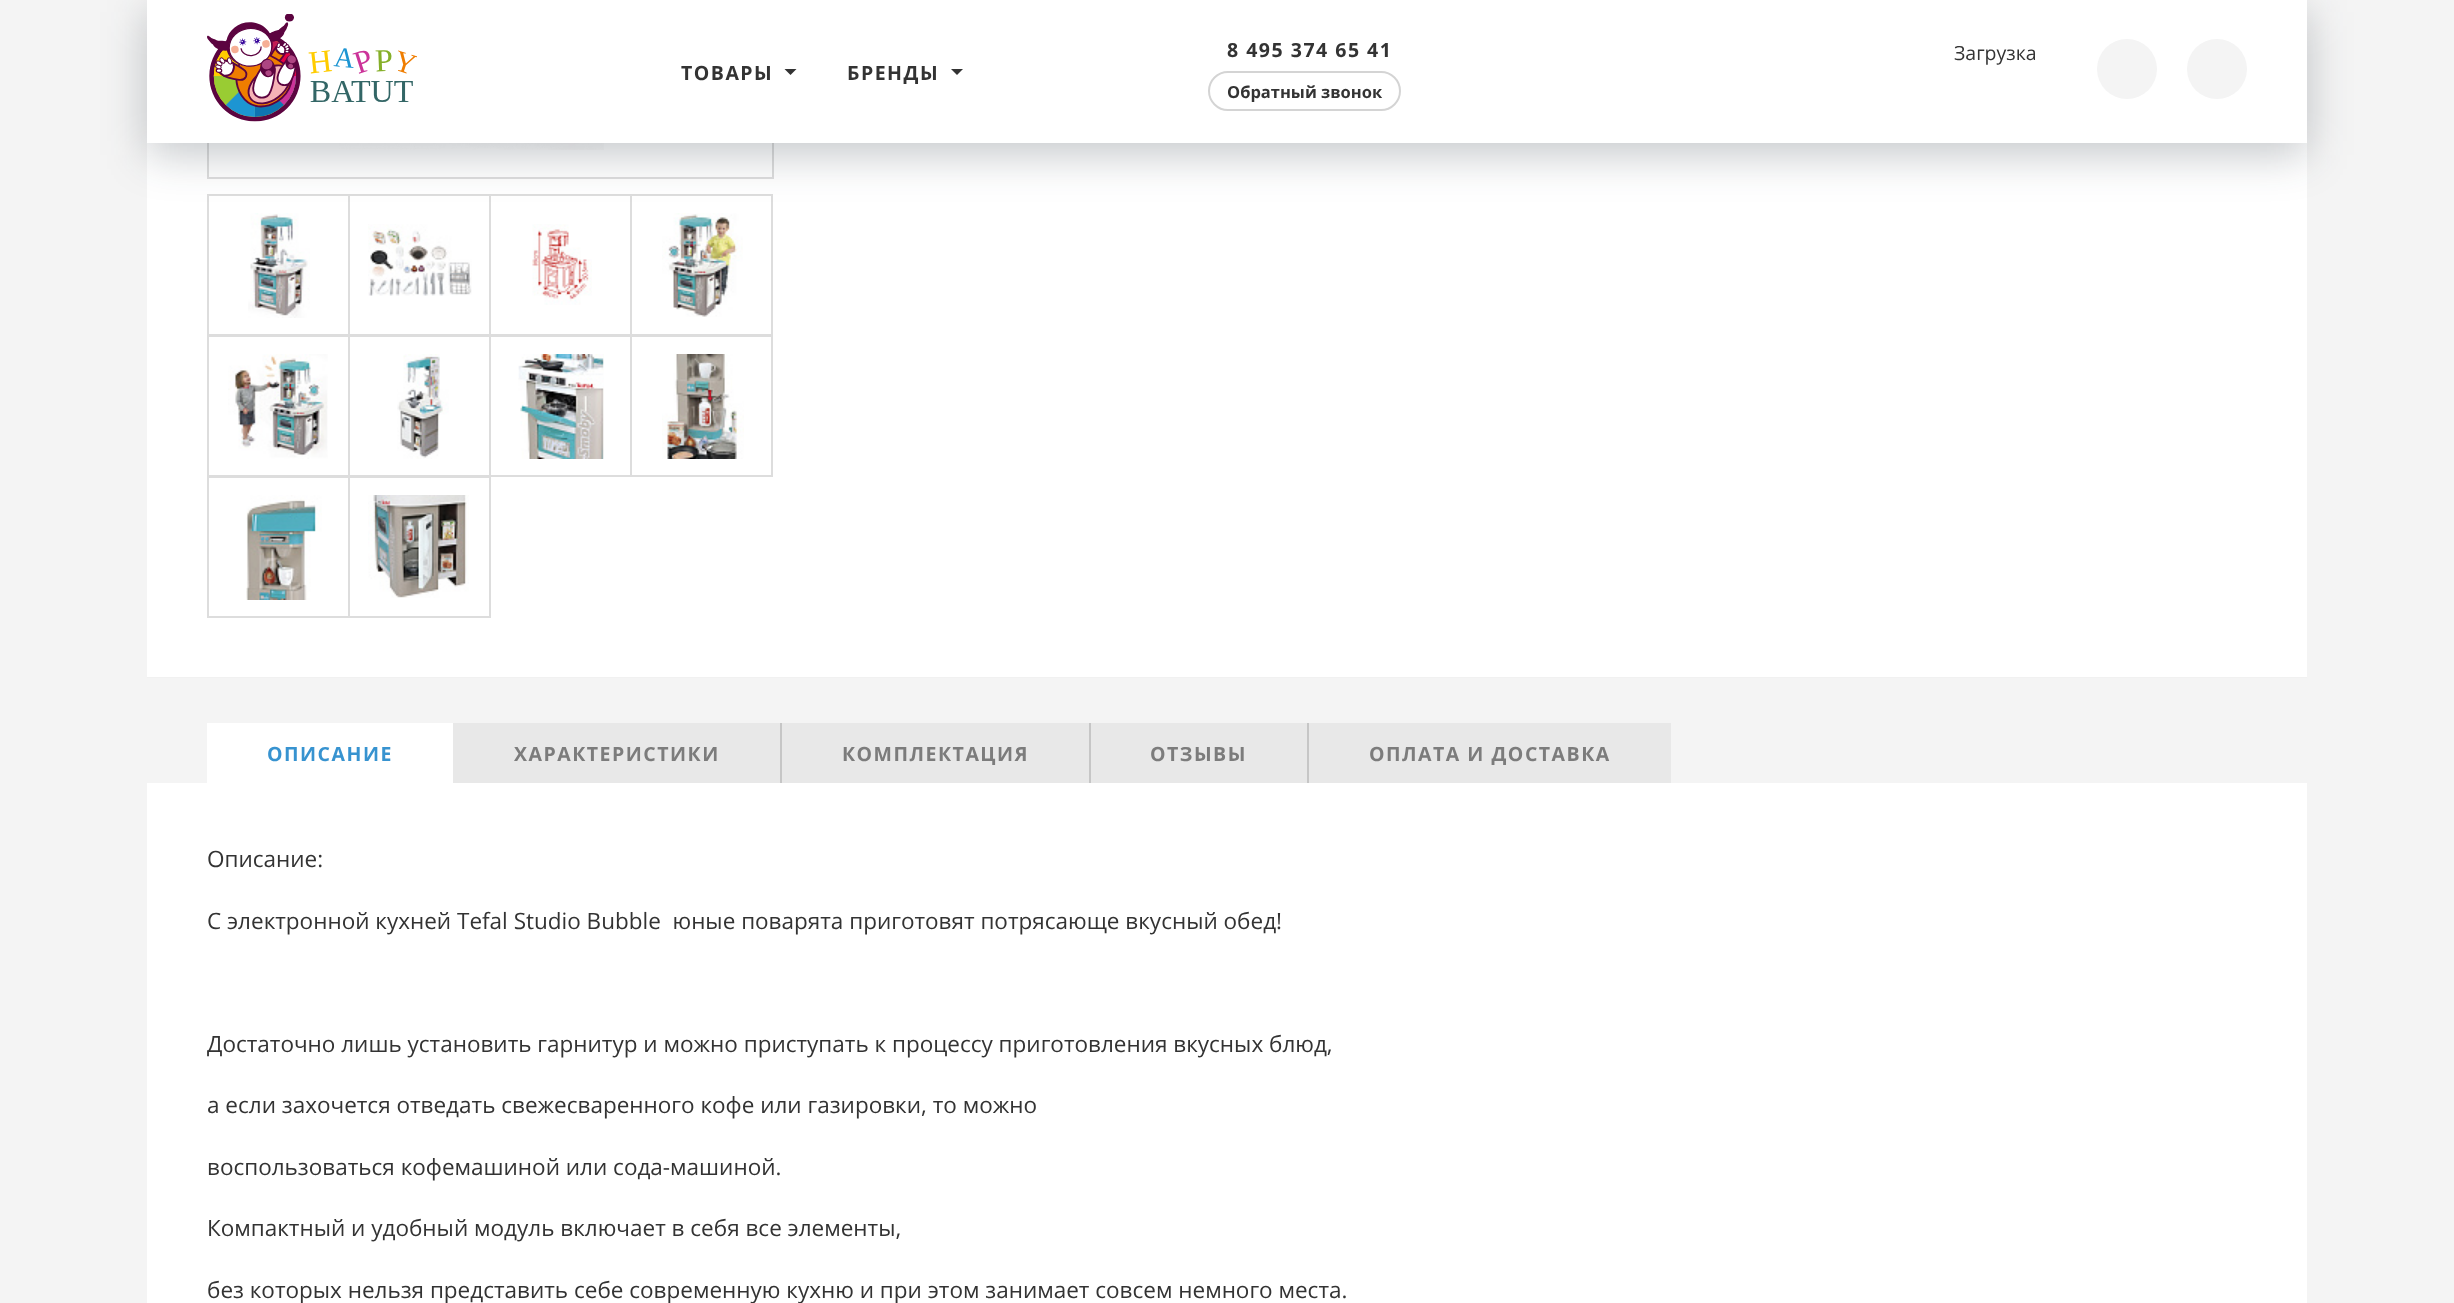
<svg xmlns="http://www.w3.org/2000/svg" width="2454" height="1303">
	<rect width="100%" height="100%" fill="#F4F4F4" />
	<rect x="147" y="143" width="2160" height="1160" fill="#FFFFFF" />
	<rect x="147" y="677" width="2160" height="1" fill="#F1F1F1" />
	<rect x="208" y="-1" width="565" height="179" fill="none" stroke="#DDDDDD" stroke-width="2" />
	<image x="339" y="143" width="265" height="7" href="assets/img1.png" />
	<rect x="208" y="195" width="141" height="140" fill="none" stroke="#DDDDDD" stroke-width="2" />
	<image x="248" y="213" width="62" height="105" href="assets/img2.png" />
	<rect x="349" y="195" width="141" height="140" fill="none" stroke="#DDDDDD" stroke-width="2" />
	<image x="368" y="224" width="104" height="72" href="assets/img3.png" />
	<rect x="490" y="195" width="141" height="140" fill="none" stroke="#DDDDDD" stroke-width="2" />
	<image x="532" y="224" width="60" height="81" href="assets/img4.png" />
	<rect x="631" y="195" width="141" height="140" fill="none" stroke="#DDDDDD" stroke-width="2" />
	<image x="662" y="213" width="81" height="104" href="assets/img5.png" />
	<rect x="208" y="336" width="141" height="140" fill="none" stroke="#DDDDDD" stroke-width="2" />
	<image x="228" y="354" width="100" height="105" href="assets/img6.png" />
	<rect x="349" y="336" width="141" height="140" fill="none" stroke="#DDDDDD" stroke-width="2" />
	<image x="397" y="354" width="52" height="105" href="assets/img7.png" />
	<rect x="490" y="336" width="141" height="140" fill="none" stroke="#DDDDDD" stroke-width="2" />
	<image x="518" y="354" width="86" height="105" href="assets/img8.png" />
	<rect x="631" y="336" width="141" height="140" fill="none" stroke="#DDDDDD" stroke-width="2" />
	<image x="662" y="354" width="82" height="105" href="assets/img9.png" />
	<rect x="208" y="477" width="141" height="140" fill="none" stroke="#DDDDDD" stroke-width="2" />
	<image x="246" y="495" width="76" height="105" href="assets/img10.png" />
	<rect x="349" y="477" width="141" height="140" fill="none" stroke="#DDDDDD" stroke-width="2" />
	<image x="368" y="495" width="101" height="103" href="assets/img11.png" />
	<rect x="147" y="12" width="2160" height="143" fill="#192430" fill-opacity="0.25" filter="blur(22px)" />
	<rect x="147" y="0" width="2160" height="143" fill="#FFFFFF" />
	<image x="207" y="14" width="210" height="108" href="assets/img12.png" />
	<text x="681" y="80" font-family="Open Sans" font-size="19.5" font-weight="700" letter-spacing="1.5" fill="#333333">ТОВАРЫ</text>
	<path d="M784.5 69H796.5L790.5 75Z" fill="#333333" />
	<text x="847" y="80" font-family="Open Sans" font-size="19.5" font-weight="700" letter-spacing="1.5" fill="#333333">БРЕНДЫ</text>
	<path d="M951 69H963L957 75Z" fill="#333333" />
	<text x="1227" y="57" font-family="Open Sans" font-size="19.5" font-weight="700" letter-spacing="1.5" fill="#333333">8 495 374 65 41</text>
	<rect x="1209" y="72" width="191" height="38" rx="19" fill="none" stroke="#D4D4D4" stroke-width="2" />
	<text x="1227" y="98" font-family="Open Sans" font-size="16.5" font-weight="700" fill="#333333">Обратный звонок</text>
	<text x="1954" y="60" font-family="Open Sans" font-size="19.5" fill="#333333">Загрузка</text>
	<circle cx="2127" cy="69" r="30" fill="#F4F4F4" />
	<circle cx="2217" cy="69" r="30" fill="#F4F4F4" />
	<rect x="147" y="678" width="2160" height="105" fill="#F4F4F4" />
	<rect x="207" y="723" width="246" height="60" fill="#FFFFFF" />
	<text x="267" y="761" font-family="Open Sans" font-size="19.5" font-weight="700" letter-spacing="1.5" fill="#3793D0">ОПИСАНИЕ</text>
	<rect x="453" y="723" width="327" height="60" fill="#E8E8E8" />
	<text x="514" y="761" font-family="Open Sans" font-size="19.5" font-weight="700" letter-spacing="1.5" fill="#7C7C7C">ХАРАКТЕРИСТИКИ</text>
	<rect x="782" y="723" width="307" height="60" fill="#E8E8E8" />
	<rect x="780" y="723" width="2" height="60" fill="#C6C6C6" />
	<text x="842" y="761" font-family="Open Sans" font-size="19.5" font-weight="700" letter-spacing="1.5" fill="#7C7C7C">КОМПЛЕКТАЦИЯ</text>
	<rect x="1091" y="723" width="216" height="60" fill="#E8E8E8" />
	<rect x="1089" y="723" width="2" height="60" fill="#C6C6C6" />
	<text x="1150" y="761" font-family="Open Sans" font-size="19.5" font-weight="700" letter-spacing="1.5" fill="#7C7C7C">ОТЗЫВЫ</text>
	<rect x="1309" y="723" width="362" height="60" fill="#E8E8E8" />
	<rect x="1307" y="723" width="2" height="60" fill="#C6C6C6" />
	<text x="1369" y="761" font-family="Open Sans" font-size="19.5" font-weight="700" letter-spacing="1.5" fill="#7C7C7C">ОПЛАТА И ДОСТАВКА</text>
	<g font-family="Open Sans" font-size="22.5" fill="#333333">
		<text x="207" y="867">Описание:</text>
		<text x="207" y="929" xml:space="preserve">С электронной кухней Tefal Studio Bubble  юные поварята приготовят потрясающе вкусный обед!</text>
		<text x="207" y="1052">Достаточно лишь установить гарнитур и можно приступать к процессу приготовления вкусных блюд,</text>
		<text x="207" y="1113">а если захочется отведать свежесваренного кофе или газировки, то можно</text>
		<text x="207" y="1175">воспользоваться кофемашиной или сода-машиной.</text>
		<text x="207" y="1236">Компактный и удобный модуль включает в себя все элементы,</text>
		<text x="207" y="1298">без которых нельзя представить себе современную кухню и при этом занимает совсем немного места.</text>
	</g>
</svg>
